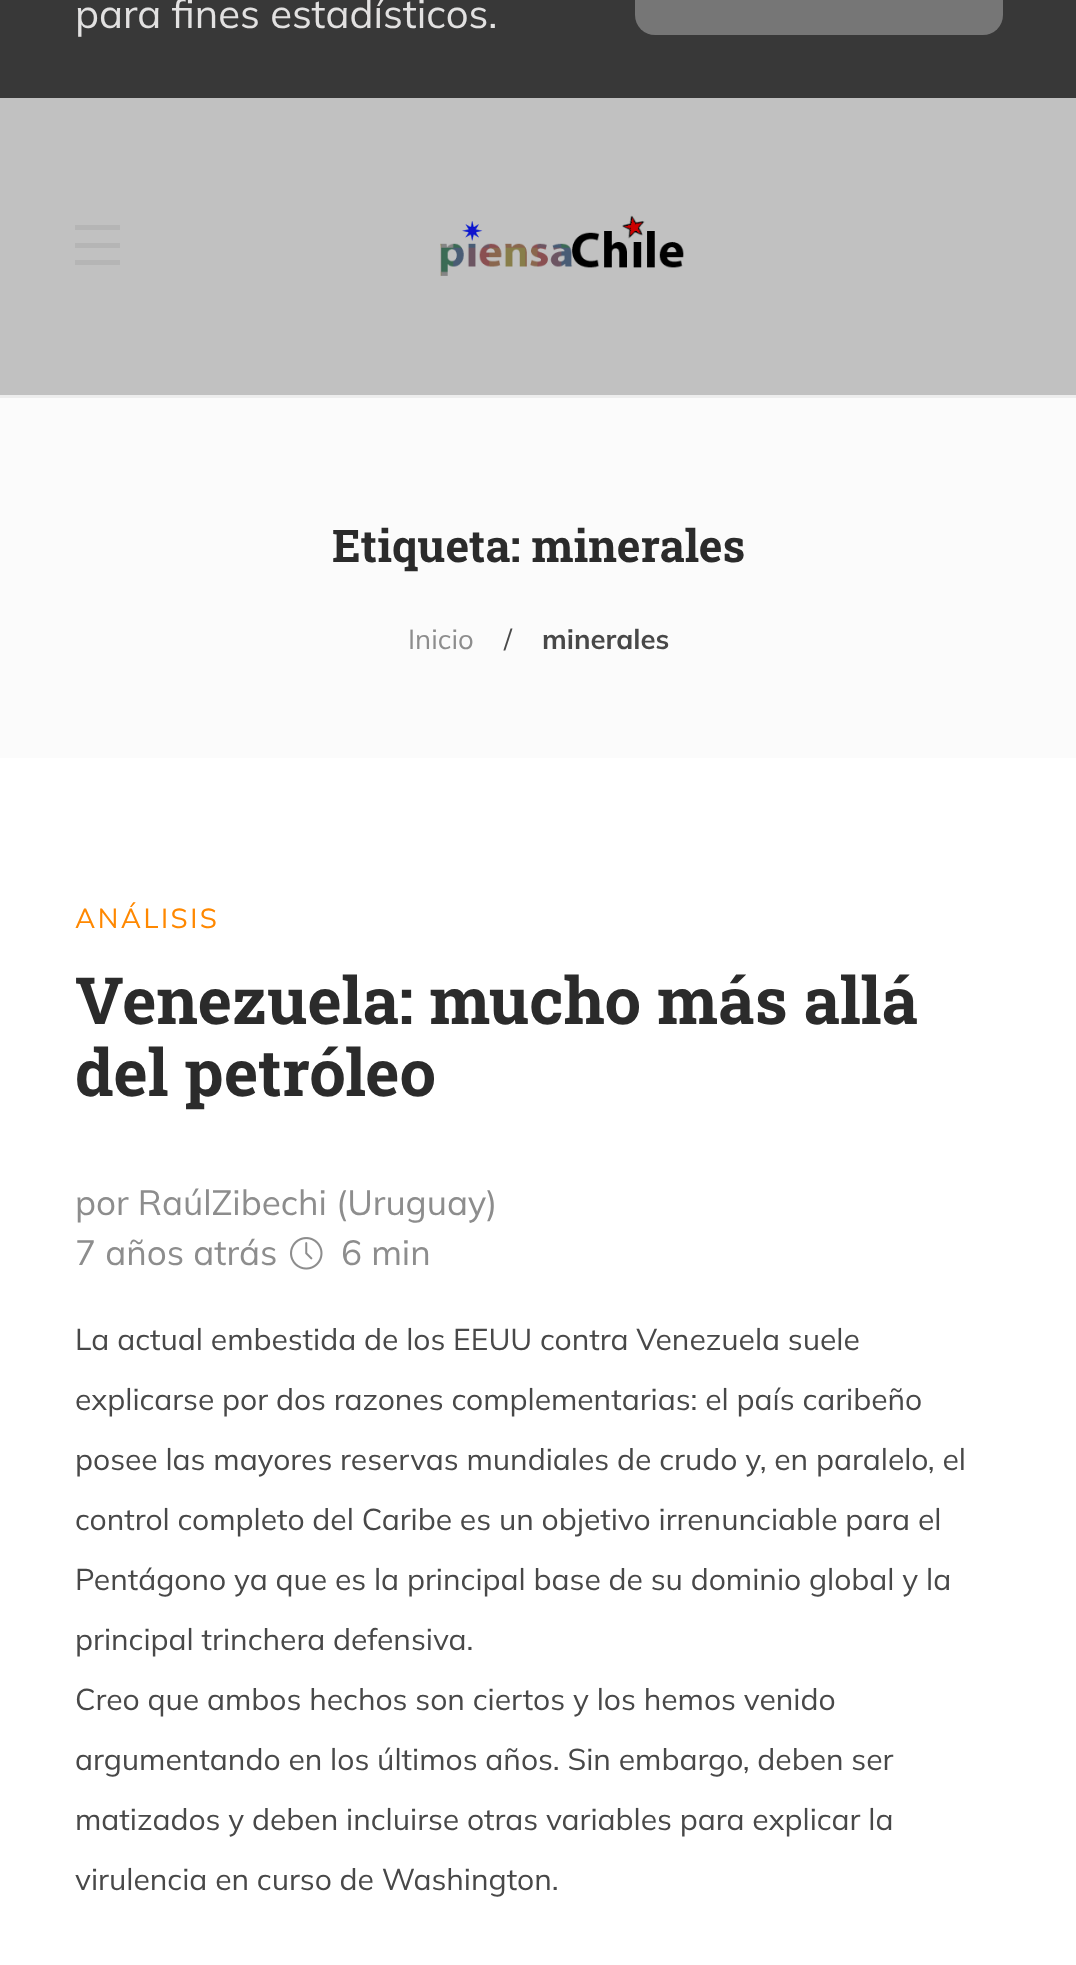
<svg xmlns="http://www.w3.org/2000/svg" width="1076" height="1965">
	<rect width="100%" height="100%" fill="#FFFFFF" />
	<rect x="0" y="0" width="1076" height="98" fill="#383838" />
	<text x="75" y="28" font-family="Mulish" font-size="40" fill="#E2E1E1">para fines estadísticos.</text>
	<rect x="635" y="-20" width="368" height="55" rx="20" fill="#767676" />
	<rect x="0" y="98" width="1076" height="297" fill="#C1C1C1" />
	<rect x="0" y="395" width="1076" height="3" fill="#EDEDED" />
	<rect x="75" y="225" width="45" height="5" fill="#B5B5B5" />
	<rect x="75" y="243" width="45" height="5" fill="#B5B5B5" />
	<rect x="75" y="260" width="45" height="5" fill="#B5B5B5" />
	<image x="440" y="215" width="244" height="61" href="assets/img1.png" />
	<rect x="0" y="398" width="1076" height="360" fill="#FBFBFB" />
	<text x="332" y="562" font-family="Roboto Slab" font-size="45" font-weight="700" fill="#2B2B2B">Etiqueta: minerales</text>
	<text x="408" y="649" font-family="Mulish" font-size="27.5" fill="#8D8D8D">Inicio</text>
	<text x="504" y="649" font-family="Mulish" font-size="27.5" fill="#484848">/</text>
	<text x="542" y="649" font-family="Mulish" font-size="27.5" font-weight="700" fill="#484848">minerales</text>
	<text x="75" y="928" font-family="Mulish" font-size="27.5" letter-spacing="2.5" fill="#FF8800">ANÁLISIS</text>
	<g font-family="Roboto Slab" font-size="65" font-weight="700" fill="#2B2B2B">
		<text x="75" y="1024">Venezuela: mucho más allá</text>
		<text x="75" y="1096">del petróleo</text>
	</g>
	<g font-family="Mulish" font-size="35" fill="#8D8D8D">
		<text x="75" y="1215">por RaúlZibechi (Uruguay)</text>
		<text x="75" y="1265">7 años atrás</text>
	</g>
	<image x="290" y="1237" width="33" height="33" href="assets/img2.png" />
	<text x="341" y="1265" font-family="Mulish" font-size="35" fill="#8D8D8D">6 min</text>
	<g font-family="Mulish" font-size="30" fill="#484848">
		<text x="75" y="1350">La actual embestida de los EEUU contra Venezuela suele</text>
		<text x="75" y="1410">explicarse por dos razones complementarias: el país caribeño</text>
		<text x="75" y="1470">posee las mayores reservas mundiales de crudo y, en paralelo, el</text>
		<text x="75" y="1530">control completo del Caribe es un objetivo irrenunciable para el</text>
		<text x="75" y="1590">Pentágono ya que es la principal base de su dominio global y la</text>
		<text x="75" y="1650">principal trinchera defensiva.</text>
		<text x="75" y="1710">Creo que ambos hechos son ciertos y los hemos venido</text>
		<text x="75" y="1770">argumentando en los últimos años. Sin embargo, deben ser</text>
		<text x="75" y="1830">matizados y deben incluirse otras variables para explicar la</text>
		<text x="75" y="1890">virulencia en curso de Washington.</text>
	</g>
</svg>
